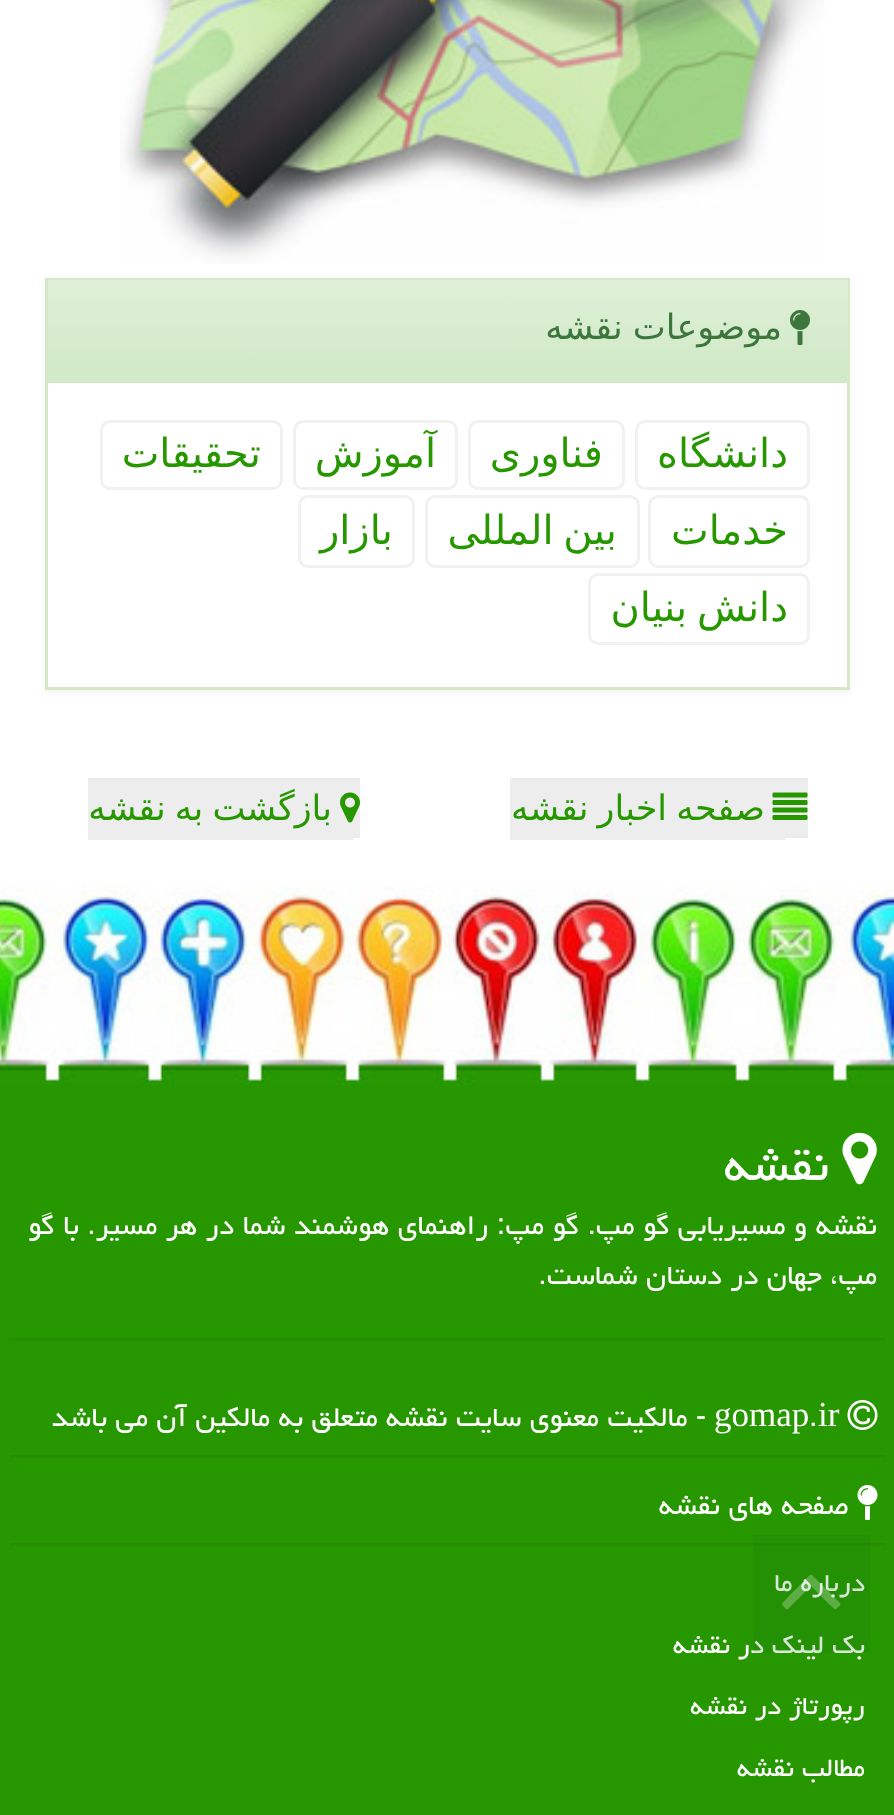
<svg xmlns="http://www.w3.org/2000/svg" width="894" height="1815">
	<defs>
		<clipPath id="clip1"><path d="M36 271H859V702H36ZM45 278H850V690H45Z" clip-rule="evenodd" /></clipPath>
		<linearGradient id="g1" gradientUnits="userSpaceOnUse" x1="448" y1="280" x2="448" y2="380"><stop offset="0" stop-color="#DFF0D8" /><stop offset="1" stop-color="#D0E9C6" /></linearGradient>
	</defs>
	<rect width="100%" height="100%" fill="#FFFFFF" />
	<image x="120" y="0" width="705" height="264" href="assets/img1.png" />
	<g clip-path="url(#clip1)">
		<rect x="45" y="280" width="805" height="413" fill="#000000" fill-opacity="0.05" filter="blur(2.5px)" />
	</g>
	<rect x="46.5" y="279.5" width="802" height="409" fill="none" stroke="#D6E9C6" stroke-width="3" />
	<rect x="48" y="280" width="800" height="100" fill="url(#g1)" />
	<rect x="48" y="380" width="800" height="3" fill="#D6E9C6" />
	<image x="790" y="310" width="20" height="35" href="assets/img2.png" />
	<text x="782" y="339" word-spacing="-1" font-family="DejaVu Sans" font-size="35" direction="rtl" fill="#3C763D">موضوعات نقشه</text>
	<rect x="636.5" y="421.5" width="172" height="67" rx="8.5" fill="none" stroke="#F1F1F1" stroke-width="3" />
	<text x="788" y="467" font-family="DejaVu Sans" font-size="40" direction="rtl" fill="#279700">دانشگاه</text>
	<rect x="469.5" y="421.5" width="154" height="67" rx="8.5" fill="none" stroke="#F1F1F1" stroke-width="3" />
	<text x="603" y="467" font-family="DejaVu Sans" font-size="40" direction="rtl" fill="#279700">فناوری</text>
	<rect x="294.5" y="421.5" width="162" height="67" rx="8.5" fill="none" stroke="#F1F1F1" stroke-width="3" />
	<text x="436" y="467" font-family="DejaVu Sans" font-size="40" direction="rtl" fill="#279700">آموزش</text>
	<rect x="101.5" y="421.5" width="180" height="67" rx="8.5" fill="none" stroke="#F1F1F1" stroke-width="3" />
	<text x="261" y="467" font-family="DejaVu Sans" font-size="40" direction="rtl" fill="#279700">تحقیقات</text>
	<rect x="649.5" y="496.5" width="159" height="70" rx="8.5" fill="none" stroke="#F1F1F1" stroke-width="3" />
	<text x="788" y="544" font-family="DejaVu Sans" font-size="40" direction="rtl" fill="#279700">خدمات</text>
	<rect x="426.5" y="496.5" width="212" height="70" rx="8.5" fill="none" stroke="#F1F1F1" stroke-width="3" />
	<text x="617" y="544" word-spacing="-3" font-family="DejaVu Sans" font-size="40" direction="rtl" fill="#279700">بین المللی</text>
	<rect x="299.5" y="496.5" width="114" height="70" rx="8.5" fill="none" stroke="#F1F1F1" stroke-width="3" />
	<text x="393" y="544" font-family="DejaVu Sans" font-size="40" direction="rtl" fill="#279700">بازار</text>
	<rect x="589.5" y="574.5" width="219" height="69" rx="8.5" fill="none" stroke="#F1F1F1" stroke-width="3" />
	<text x="788" y="621" word-spacing="-3" font-family="DejaVu Sans" font-size="40" direction="rtl" fill="#279700">دانش بنیان</text>
	<rect x="785" y="778" width="23" height="60" fill="#EDEDED" />
	<rect x="510" y="778" width="275" height="62" fill="#EDEDED" />
	<image x="772" y="792" width="36" height="28" href="assets/img3.png" />
	<text x="765" y="820" word-spacing="-2" font-family="DejaVu Sans" font-size="35" direction="rtl" fill="#279700">صفحه اخبار نقشه</text>
	<rect x="353" y="778" width="7" height="60" fill="#EDEDED" />
	<rect x="88" y="778" width="265" height="62" fill="#EDEDED" />
	<image x="340" y="792" width="20" height="31" href="assets/img4.png" />
	<text x="332" y="820" word-spacing="-2" font-family="DejaVu Sans" font-size="35" direction="rtl" fill="#279700">بازگشت به نقشه</text>
	<rect x="0" y="1085" width="894" height="730" fill="#279700" />
	<rect x="10" y="1543" width="875" height="3" fill="#258E00" />
	<g font-family="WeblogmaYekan" font-size="32.5" direction="rtl" fill="#FFFFFF">
		<text x="865" y="1591">درباره ما</text>
		<text x="865" y="1653">بک لینک در نقشه</text>
	</g>
	<rect x="753" y="1535" width="117" height="118" fill="#1E7C14" fill-opacity="0.18" />
	<path d="M840 1603C841 1605 840 1606 838 1607C835 1611 835 1609 830 1605L811 1586L788 1609C786 1610 785 1608 784 1607C780 1603 783 1603 787 1598L805 1580C812 1573 810 1573 817 1580Z" fill="#FFFFFF" fill-opacity="0.26" />
	<image x="0" y="885" width="894" height="200" href="assets/img5.png" />
	<rect x="10" y="1338" width="875" height="3" fill="#258E00" />
	<image x="842" y="1132" width="35" height="53" href="assets/img6.png" />
	<text x="829" y="1180" font-family="WeblogmaYekan" font-size="60" direction="rtl" fill="#FFFFFF">نقشه</text>
	<g font-family="WeblogmaYekan" font-size="35" direction="rtl" fill="#FFFFFF">
		<text x="877" y="1234">نقشه و مسیریابی گو مپ. گو مپ: راهنمای هوشمند شما در هر مسیر. با گو</text>
		<text x="877" y="1284">مپ، جهان در دستان شماست.</text>
	</g>
	<rect x="10" y="1455" width="875" height="3" fill="#258E00" />
	<image x="847" y="1400" width="31" height="30" href="assets/img7.png" />
	<text x="818" y="1426" font-family="Liberation Serif" font-size="35" fill="#FFFFFF">ir</text>
	<text x="809" y="1426" font-family="WeblogmaYekan" font-size="35" fill="#FFFFFF">.</text>
	<text x="714" y="1426" font-family="Liberation Serif" font-size="35" fill="#FFFFFF">gomap</text>
	<text x="706" y="1426" font-family="WeblogmaYekan" font-size="35" direction="rtl" fill="#FFFFFF">- مالکیت معنوی سایت نقشه متعلق به مالکین آن می باشد</text>
	<image x="857" y="1485" width="21" height="35" href="assets/img8.png" />
	<text x="849" y="1514" font-family="WeblogmaYekan" font-size="35" direction="rtl" fill="#FFFFFF">صفحه های نقشه</text>
	<g font-family="WeblogmaYekan" font-size="32.5" direction="rtl" fill="#FFFFFF">
		<text x="865" y="1714">رپورتاژ در نقشه</text>
		<text x="865" y="1776">مطالب نقشه</text>
	</g>
</svg>
